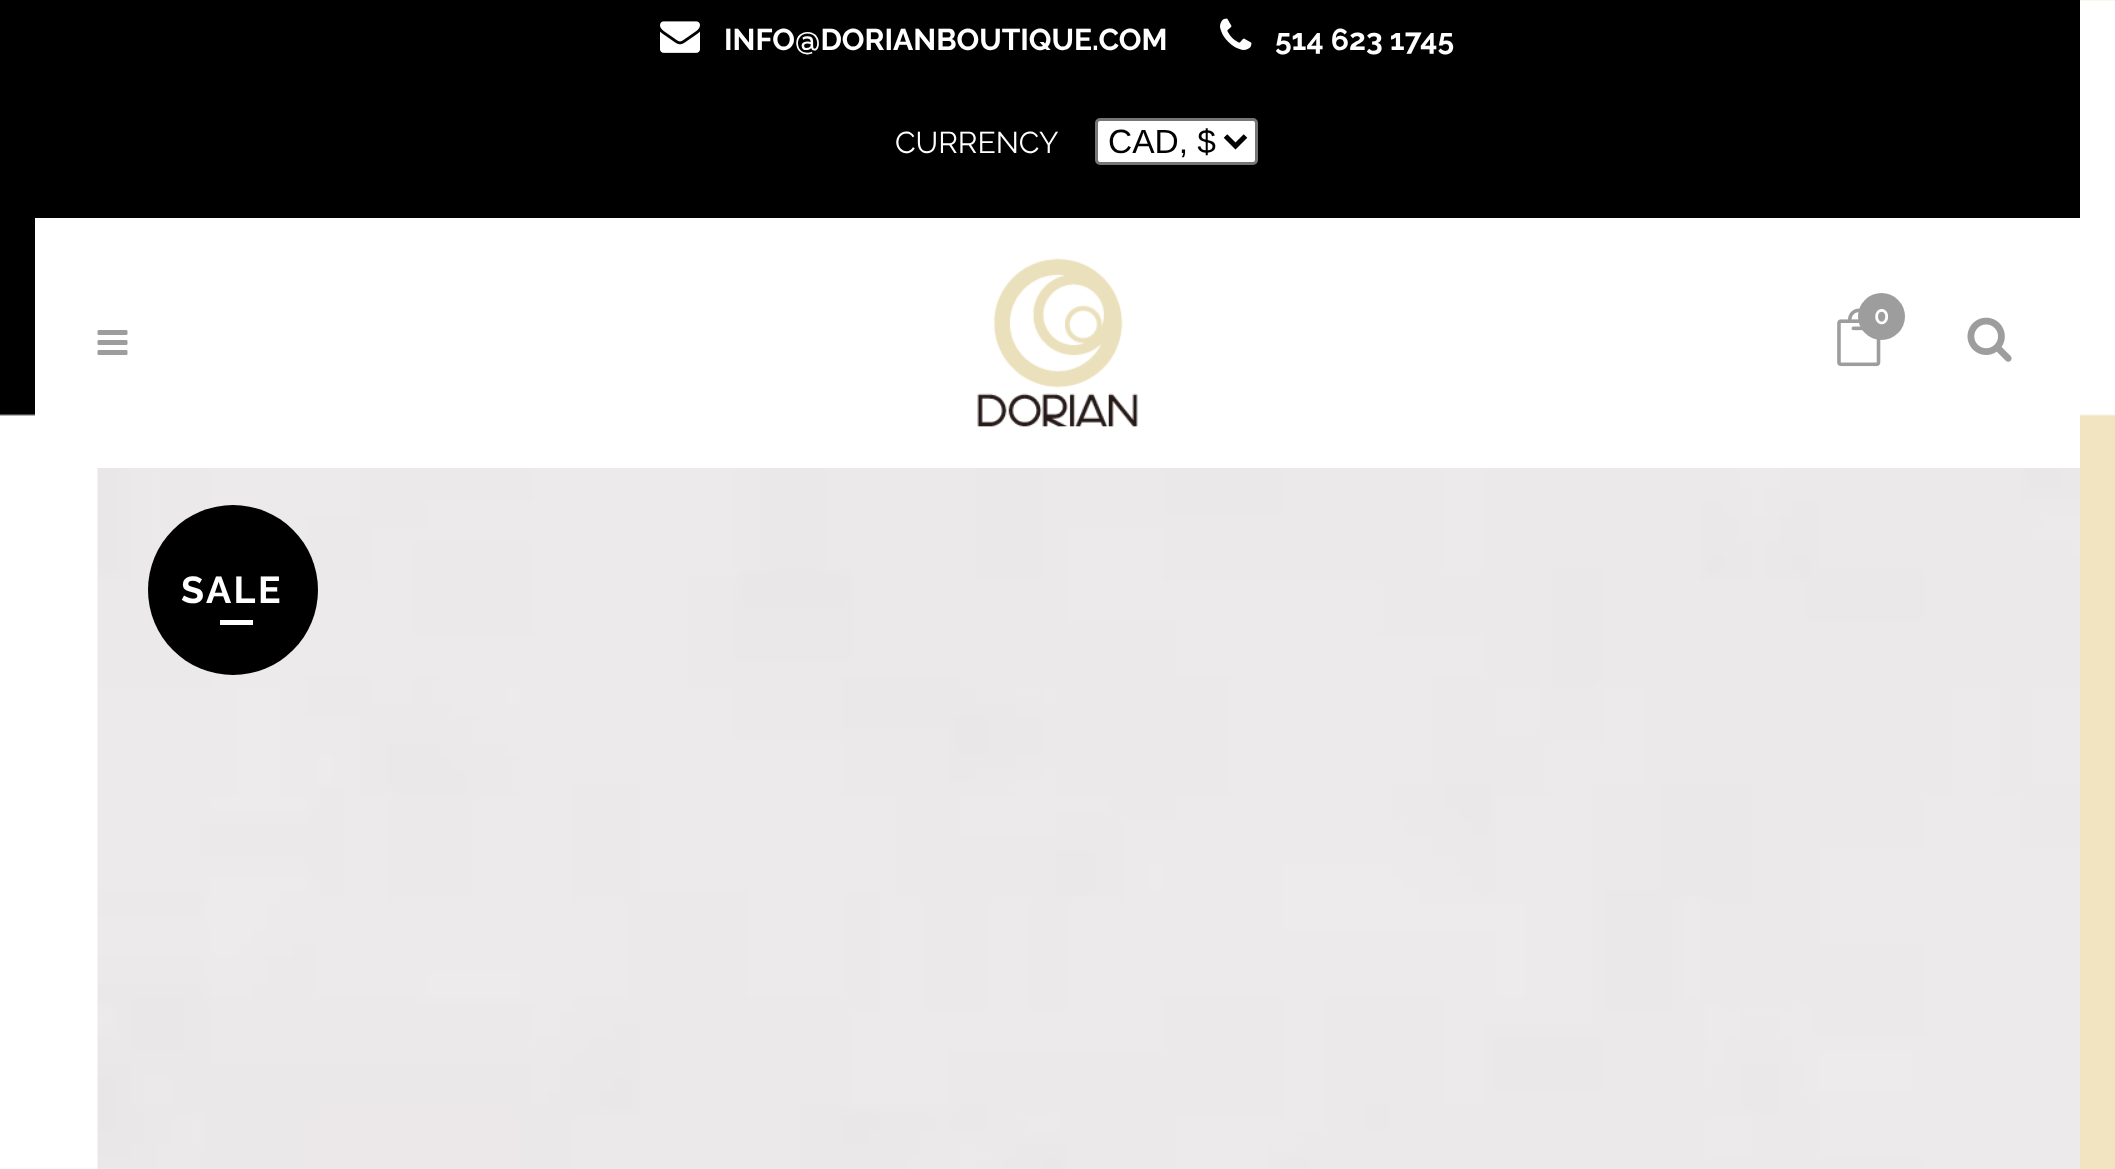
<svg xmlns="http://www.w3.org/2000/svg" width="2115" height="1169">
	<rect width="100%" height="100%" fill="#FFFFFF" />
	<image x="0" y="0" width="2115" height="1169" href="assets/img1.png" />
	<rect x="81" y="0" width="1999" height="218" fill="#000000" />
	<image x="660" y="21" width="40" height="32" href="assets/img2.png" />
	<text x="724" y="50" font-family="Raleway" font-size="30" font-weight="700" fill="#FFFFFF">INFO@DORIANBOUTIQUE.COM</text>
	<image x="1220" y="18" width="32" height="32" href="assets/img3.png" />
	<text x="1275" y="50" font-family="Raleway" font-size="30" font-weight="700" fill="#FFFFFF">514 623 1745</text>
	<text x="895" y="153" font-family="Raleway" font-size="30" fill="#FFFFFF">CURRENCY</text>
	<rect x="1096.5" y="119.5" width="160" height="44" rx="3.5" fill="#FFFFFF" stroke="#767676" stroke-width="3" />
	<path d="M1225.5 136L1235.5 146L1245.5 136" fill="none" stroke="#000000" stroke-width="5" />
	<text x="1108" y="153" font-family="Liberation Sans" font-size="33.5" fill="#000000">CAD, $</text>
	<rect x="35" y="218" width="2045" height="250" fill="#FFFFFF" />
	<image x="97" y="330" width="31" height="25" href="assets/img4.png" />
	<image x="977" y="258" width="161" height="169" href="assets/img5.png" />
	<image x="1837" y="308" width="44" height="59" href="assets/img6.png" />
	<circle cx="1881.5" cy="316.5" r="23.5" fill="#9D9D9D" />
	<text x="1874" y="324" font-family="Raleway" font-size="25" font-weight="600" fill="#FFFFFF">0</text>
	<image x="1967" y="317" width="45" height="45" href="assets/img7.png" />
	<rect x="81" y="468" width="17" height="701" fill="#FFFFFF" />
	<image x="97" y="468" width="1983" height="701" href="assets/img8.png" />
	<circle cx="233" cy="590" r="85" fill="#000000" />
	<text x="181" y="603" font-family="Raleway" font-size="37.5" font-weight="700" letter-spacing="2.5" fill="#FFFFFF">SALE</text>
	<rect x="220" y="620" width="33" height="5" fill="#FFFFFF" />
</svg>
